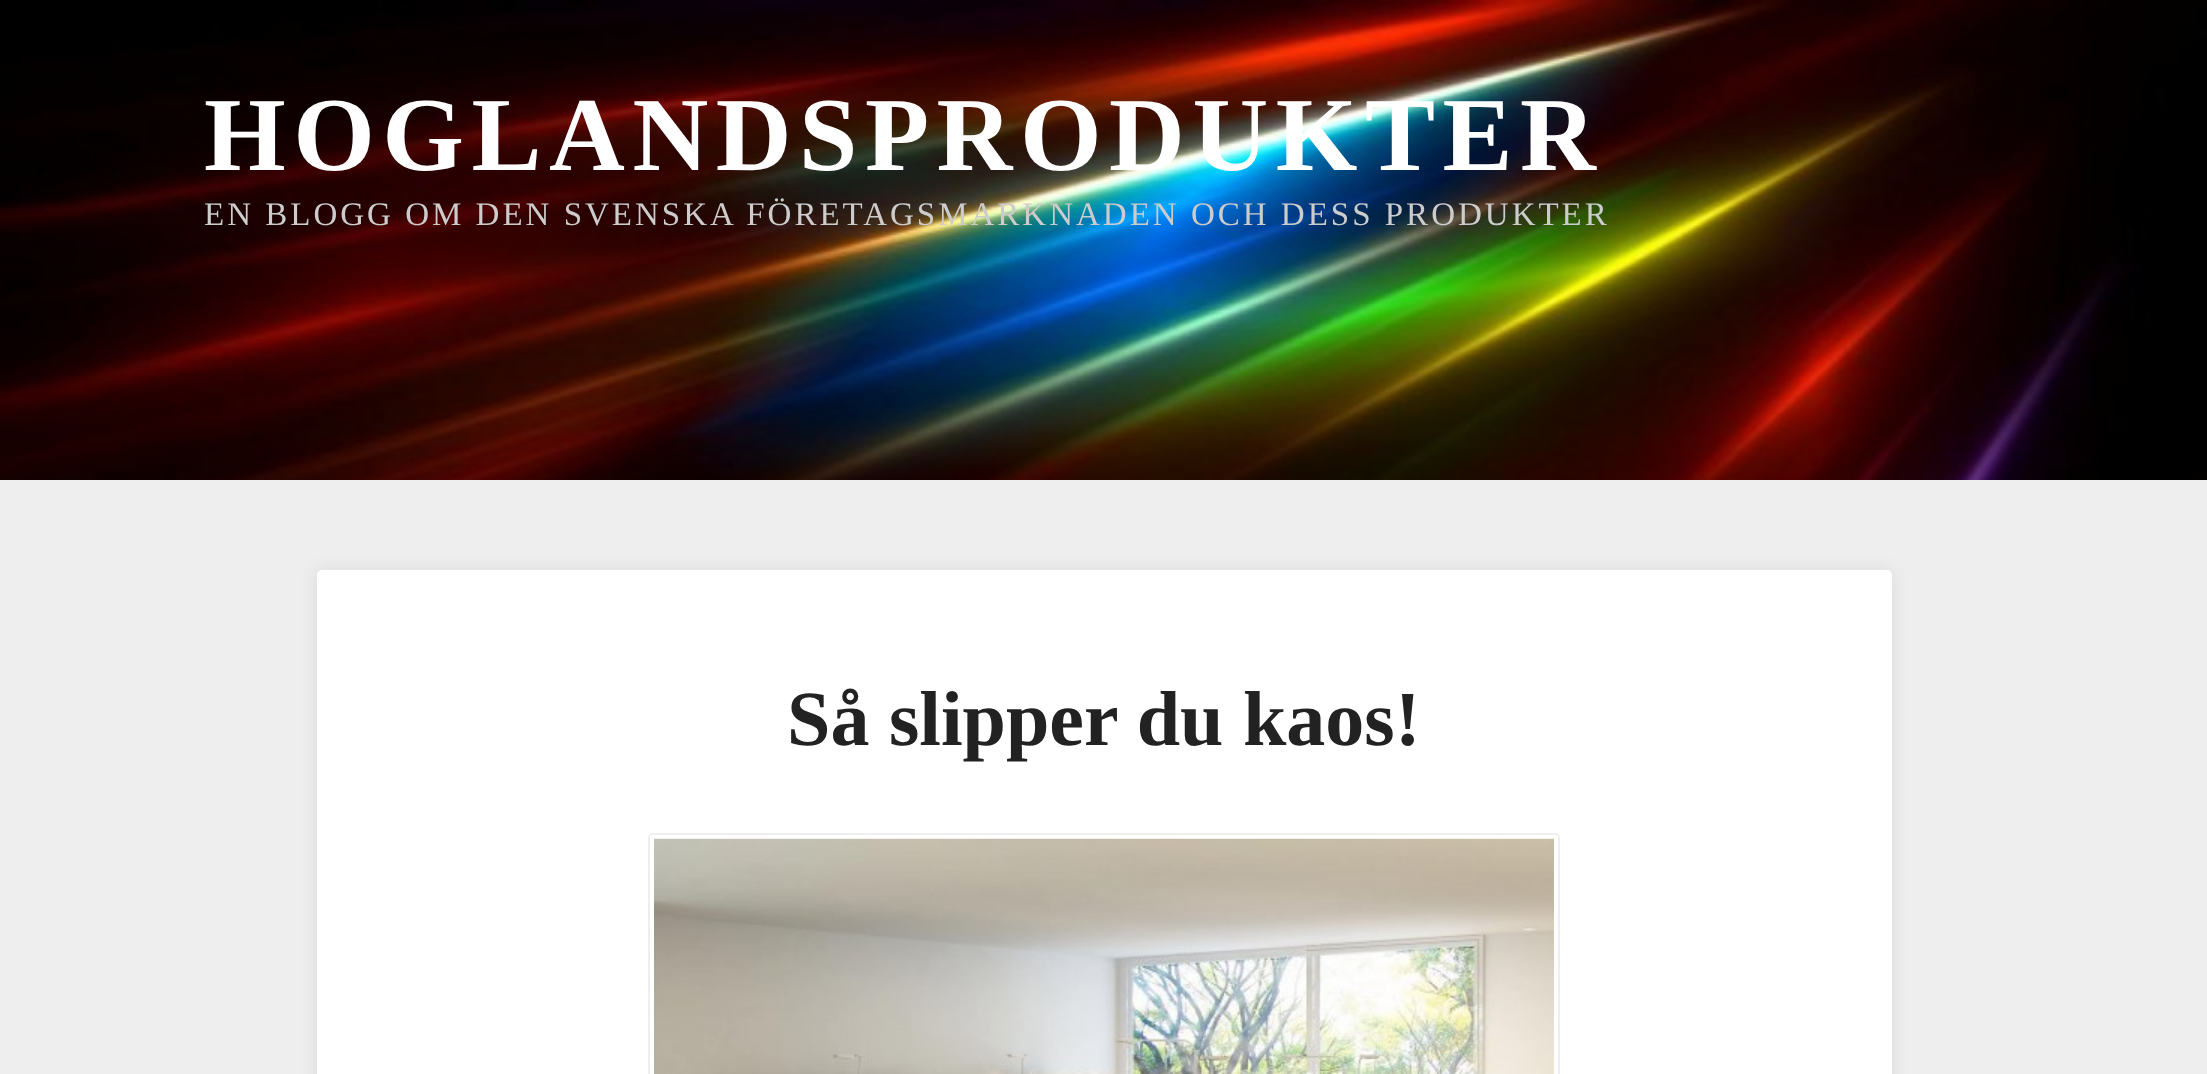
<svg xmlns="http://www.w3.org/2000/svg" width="2207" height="1074">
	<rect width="100%" height="100%" fill="#EEEEEE" />
	<image x="0" y="0" width="2207" height="480" href="assets/img1.png" />
	<text x="204" y="170" font-family="Liberation Serif" font-size="105" font-weight="700" letter-spacing="7.5" fill="#FFFFFF">HOGLANDSPRODUKTER</text>
	<text x="204" y="225" font-family="Liberation Serif" font-size="33" letter-spacing="3" fill="#CCCCCC">EN BLOGG OM DEN SVENSKA FÖRETAGSMARKNADEN OCH DESS PRODUKTER</text>
	<rect x="317" y="570" width="1575" height="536" rx="5" fill="#000000" fill-opacity="0.08" filter="blur(9px)" />
	<rect x="317" y="570" width="1575" height="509" rx="5" fill="#FFFFFF" />
	<text x="787" y="745" font-family="Liberation Serif" font-size="78" font-weight="700" fill="#222222">Så slipper du kaos!</text>
	<rect x="649" y="834" width="910" height="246" rx="4" fill="none" stroke="#EEEEEE" stroke-width="2" />
	<image x="654" y="838" width="900" height="236" href="assets/img2.png" />
</svg>
